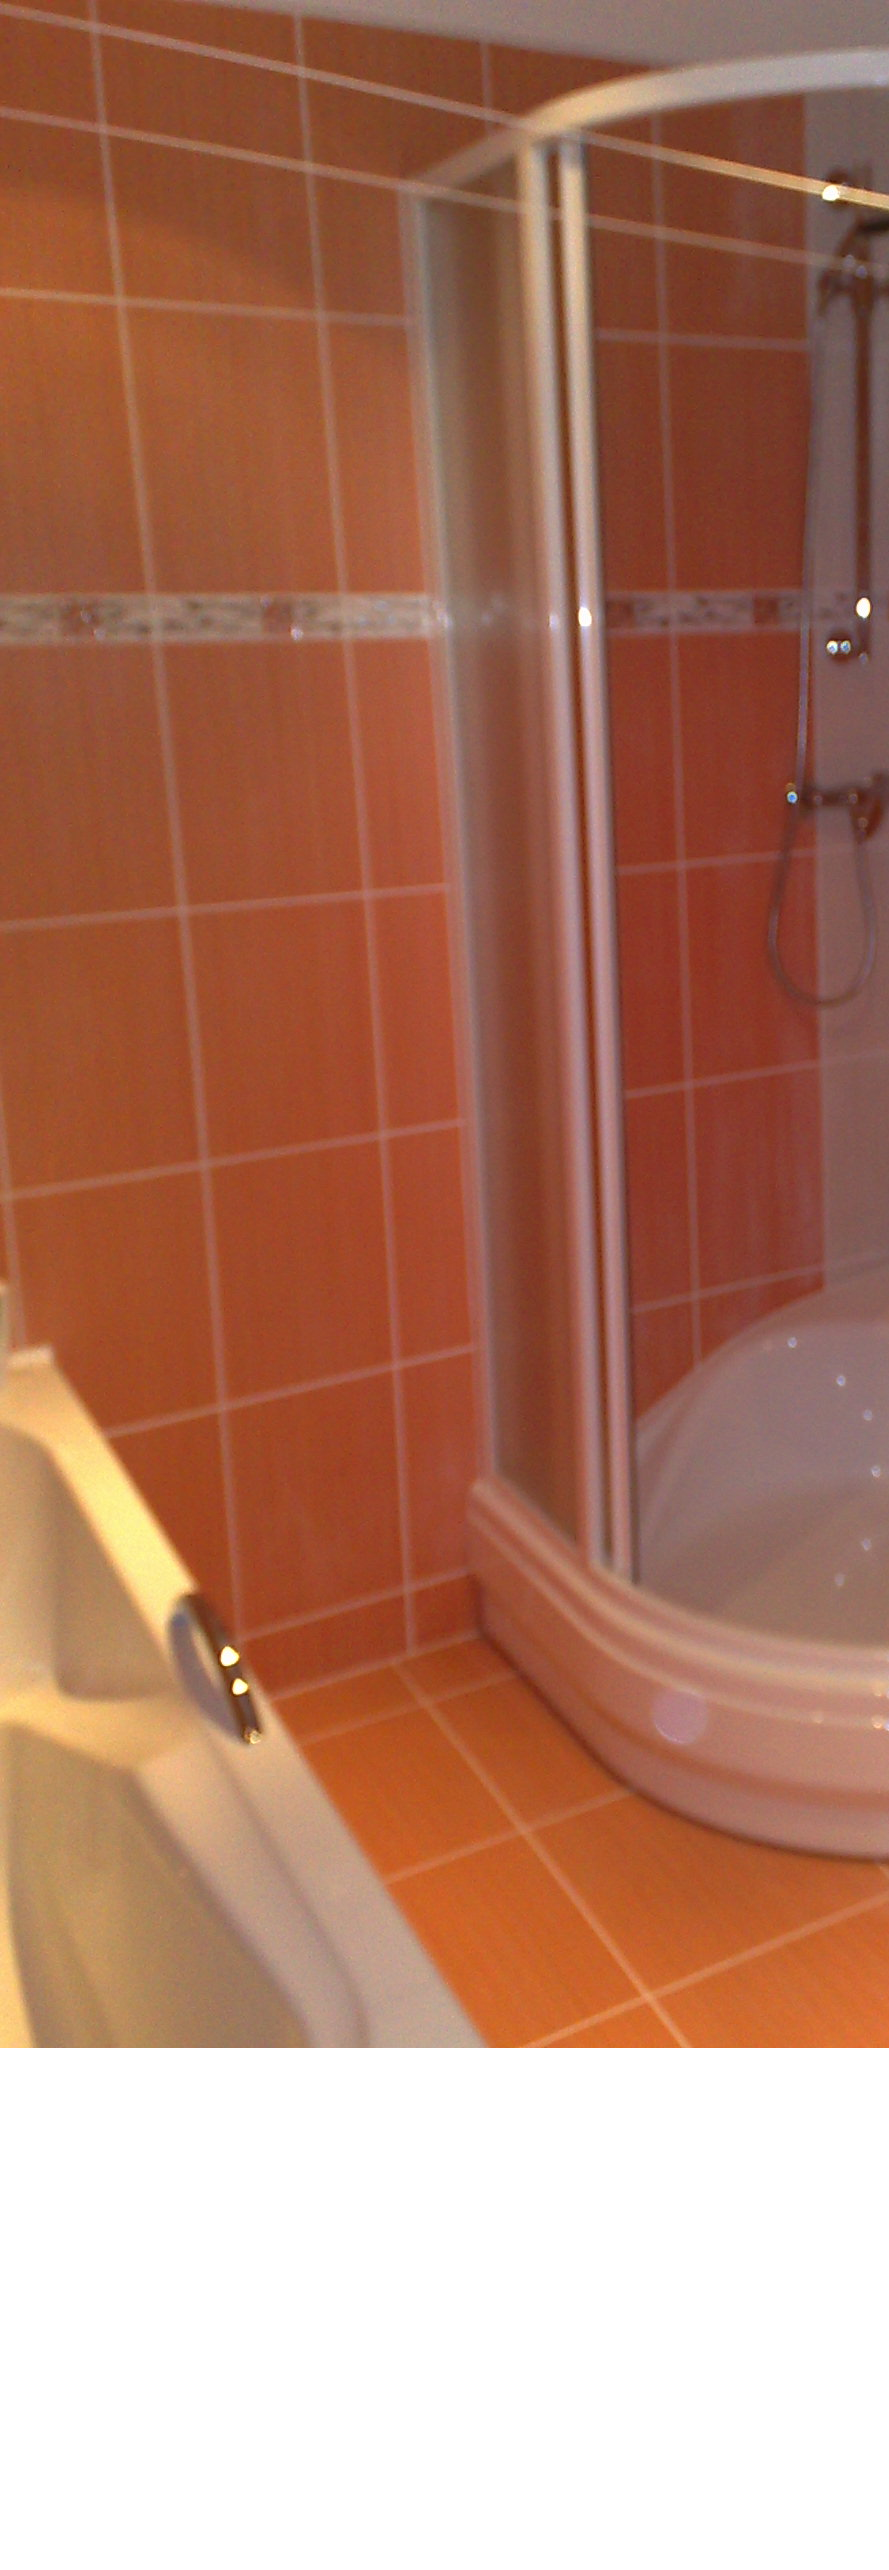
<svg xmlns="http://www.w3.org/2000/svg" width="889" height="2570">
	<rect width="100%" height="100%" fill="#FFFFFF" />
	<image x="0" y="0" width="889" height="2048" href="assets/img1.png" />
</svg>
